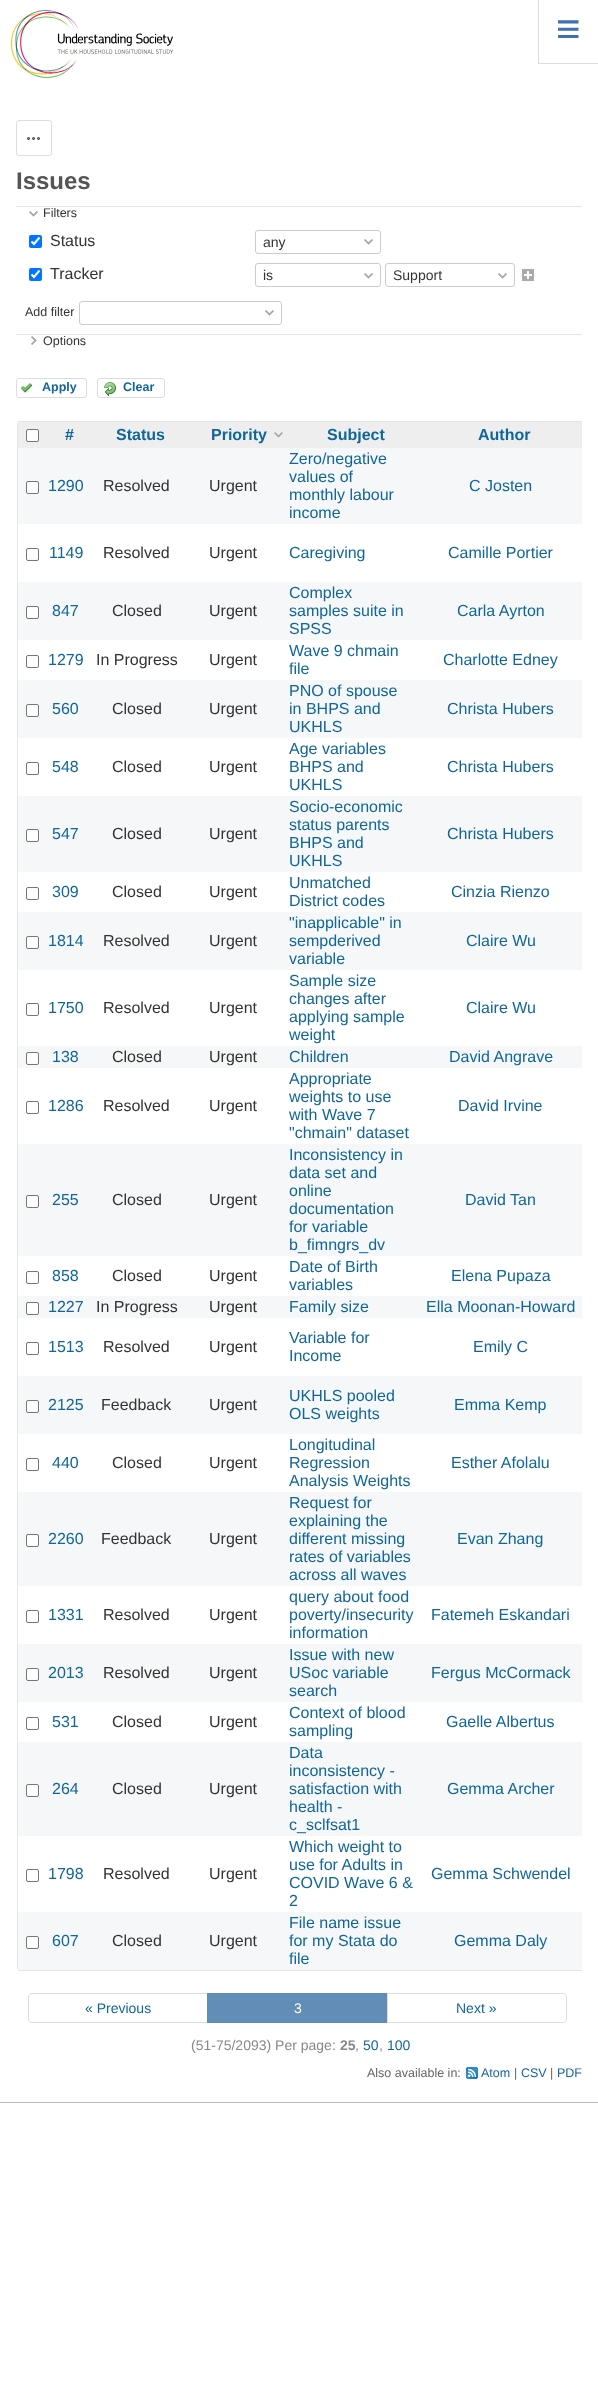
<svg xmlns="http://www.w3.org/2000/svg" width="598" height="2403">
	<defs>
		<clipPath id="clip1"><rect x="16" y="420" width="566" height="1556" /></clipPath>
	</defs>
	<rect width="100%" height="100%" fill="#FFFFFF" />
	<image x="11" y="10" width="162" height="68" href="assets/img1.png" />
	<rect x="538" y="63" width="60" height="1" fill="#DDDDDD" />
	<rect x="538" y="0" width="1" height="64" fill="#DDDDDD" />
	<text x="556" y="43" font-family="Liberation Sans" font-size="42" fill="#3C70AF">≡</text>
	<rect x="16.5" y="120.5" width="35" height="35" rx="2.5" fill="none" stroke="#DDDDDD" />
	<image x="27" y="137" width="13" height="3" href="assets/img2.png" />
	<text x="16" y="189" font-family="Liberation Sans" font-size="24" font-weight="700" fill="#555555">Issues</text>
	<rect x="16" y="206" width="566" height="1" fill="#E4E4E4" />
	<image x="29" y="211" width="9" height="6" href="assets/img3.png" />
	<text x="43" y="217" font-family="Liberation Sans" font-size="12.5" fill="#333333">Filters</text>
	<rect x="29" y="235" width="13" height="13" rx="2" fill="#0075FF" />
	<path d="M31.5 241.5L34 244L39.5 237.5" fill="none" stroke="#FFFFFF" stroke-width="2.1" />
	<text x="50" y="246" font-family="Liberation Sans" font-size="16" fill="#333333">Status</text>
	<image x="364" y="239" width="9" height="6" href="assets/img3.png" />
	<rect x="255.5" y="230.5" width="125" height="23" rx="2.5" fill="none" stroke="#CCCCCC" />
	<text x="263" y="247" font-family="Liberation Sans" font-size="14" fill="#333333">any</text>
	<rect x="29" y="268" width="13" height="13" rx="2" fill="#0075FF" />
	<path d="M31.5 274.5L34 277L39.5 270.5" fill="none" stroke="#FFFFFF" stroke-width="2.1" />
	<text x="50" y="279" font-family="Liberation Sans" font-size="16" fill="#333333">Tracker</text>
	<image x="364" y="273" width="9" height="6" href="assets/img3.png" />
	<rect x="255.5" y="263.5" width="125" height="23" rx="2.5" fill="none" stroke="#CCCCCC" />
	<text x="263" y="280" font-family="Liberation Sans" font-size="14" fill="#333333">is</text>
	<image x="498" y="273" width="9" height="6" href="assets/img3.png" />
	<rect x="385.5" y="263.5" width="129" height="23" rx="2.5" fill="none" stroke="#CCCCCC" />
	<text x="393" y="280" font-family="Liberation Sans" font-size="14" fill="#333333">Support</text>
	<image x="522" y="269" width="12" height="12" href="assets/img4.png" />
	<text x="25" y="316" font-family="Liberation Sans" font-size="12.5" fill="#333333">Add filter</text>
	<image x="265" y="310" width="9" height="6" href="assets/img3.png" />
	<rect x="79.5" y="301.5" width="202" height="23" rx="2.5" fill="none" stroke="#CCCCCC" />
	<rect x="16" y="334" width="566" height="1" fill="#E4E4E4" />
	<image x="31" y="336" width="6" height="9" href="assets/img5.png" />
	<text x="43" y="345" font-family="Liberation Sans" font-size="12.5" fill="#333333">Options</text>
	<image x="21" y="383" width="11" height="10" href="assets/img6.png" />
	<rect x="16.5" y="378.5" width="70" height="19" rx="2.5" fill="none" stroke="#DDDDDD" />
	<text x="42" y="391" font-family="Liberation Sans" font-size="12.5" font-weight="700" fill="#116699">Apply</text>
	<image x="104" y="382" width="12" height="14" href="assets/img7.png" />
	<rect x="97.5" y="378.5" width="67" height="19" rx="2.5" fill="none" stroke="#DDDDDD" />
	<text x="123" y="391" font-family="Liberation Sans" font-size="12.5" font-weight="700" fill="#116699">Clear</text>
	<g clip-path="url(#clip1)">
		<rect x="17.5" y="421.5" width="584" height="1549" rx="2.5" fill="none" stroke="#E4E4E4" />
	</g>
	<path d="M20 422H46V448H18V424C18 423 19 422 20 422Z" fill="#EEEEEE" />
	<rect x="26.5" y="429.5" width="12" height="12" rx="1.5" fill="#FFFFFF" stroke="#767676" />
	<rect x="46" y="422" width="536" height="26" fill="#EEEEEE" />
	<g font-family="Liberation Sans" font-size="16" font-weight="700" fill="#116699">
		<text x="65" y="440">#</text>
		<text x="116" y="440">Status</text>
		<text x="211" y="440">Priority</text>
	</g>
	<image x="274" y="432" width="9" height="6" href="assets/img8.png" />
	<g font-family="Liberation Sans" font-size="16" font-weight="700" fill="#116699">
		<text x="327" y="440">Subject</text>
		<text x="478" y="440">Author</text>
	</g>
	<rect x="18" y="448" width="564" height="76" fill="#F6F7F8" />
	<rect x="26.5" y="481.5" width="12" height="12" rx="1.5" fill="#FFFFFF" stroke="#767676" />
	<text x="48" y="491" font-family="Liberation Sans" font-size="16" fill="#116699">1290</text>
	<g font-family="Liberation Sans" font-size="16" fill="#333333">
		<text x="103" y="491">Resolved</text>
		<text x="209" y="491">Urgent</text>
	</g>
	<g font-family="Liberation Sans" font-size="16" fill="#116699">
		<text x="289" y="464">Zero/negative</text>
		<text x="289" y="482">values of</text>
		<text x="289" y="500">monthly labour</text>
		<text x="289" y="518">income</text>
		<text x="469" y="491">C Josten</text>
	</g>
	<rect x="26.5" y="548.5" width="12" height="12" rx="1.5" fill="none" stroke="#767676" />
	<text x="49" y="558" font-family="Liberation Sans" font-size="16" fill="#116699">1149</text>
	<g font-family="Liberation Sans" font-size="16" fill="#333333">
		<text x="103" y="558">Resolved</text>
		<text x="209" y="558">Urgent</text>
	</g>
	<g font-family="Liberation Sans" font-size="16" fill="#116699">
		<text x="289" y="558">Caregiving</text>
		<text x="448" y="558">Camille Portier</text>
	</g>
	<rect x="18" y="582" width="564" height="58" fill="#F6F7F8" />
	<rect x="26.5" y="606.5" width="12" height="12" rx="1.5" fill="#FFFFFF" stroke="#767676" />
	<text x="52" y="616" font-family="Liberation Sans" font-size="16" fill="#116699">847</text>
	<g font-family="Liberation Sans" font-size="16" fill="#333333">
		<text x="112" y="616">Closed</text>
		<text x="209" y="616">Urgent</text>
	</g>
	<g font-family="Liberation Sans" font-size="16" fill="#116699">
		<text x="289" y="598">Complex</text>
		<text x="289" y="616">samples suite in</text>
		<text x="289" y="634">SPSS</text>
		<text x="457" y="616">Carla Ayrton</text>
	</g>
	<rect x="26.5" y="655.5" width="12" height="12" rx="1.5" fill="none" stroke="#767676" />
	<text x="48" y="665" font-family="Liberation Sans" font-size="16" fill="#116699">1279</text>
	<g font-family="Liberation Sans" font-size="16" fill="#333333">
		<text x="96" y="665">In Progress</text>
		<text x="209" y="665">Urgent</text>
	</g>
	<g font-family="Liberation Sans" font-size="16" fill="#116699">
		<text x="289" y="656">Wave 9 chmain</text>
		<text x="289" y="674">file</text>
		<text x="443" y="665">Charlotte Edney</text>
	</g>
	<rect x="18" y="680" width="564" height="58" fill="#F6F7F8" />
	<rect x="26.5" y="704.5" width="12" height="12" rx="1.5" fill="#FFFFFF" stroke="#767676" />
	<text x="52" y="714" font-family="Liberation Sans" font-size="16" fill="#116699">560</text>
	<g font-family="Liberation Sans" font-size="16" fill="#333333">
		<text x="112" y="714">Closed</text>
		<text x="209" y="714">Urgent</text>
	</g>
	<g font-family="Liberation Sans" font-size="16" fill="#116699">
		<text x="289" y="696">PNO of spouse</text>
		<text x="289" y="714">in BHPS and</text>
		<text x="289" y="732">UKHLS</text>
		<text x="447" y="714">Christa Hubers</text>
	</g>
	<rect x="26.5" y="762.5" width="12" height="12" rx="1.5" fill="none" stroke="#767676" />
	<text x="52" y="772" font-family="Liberation Sans" font-size="16" fill="#116699">548</text>
	<g font-family="Liberation Sans" font-size="16" fill="#333333">
		<text x="112" y="772">Closed</text>
		<text x="209" y="772">Urgent</text>
	</g>
	<g font-family="Liberation Sans" font-size="16" fill="#116699">
		<text x="289" y="754">Age variables</text>
		<text x="289" y="772">BHPS and</text>
		<text x="289" y="790">UKHLS</text>
		<text x="447" y="772">Christa Hubers</text>
	</g>
	<rect x="18" y="796" width="564" height="76" fill="#F6F7F8" />
	<rect x="26.5" y="829.5" width="12" height="12" rx="1.5" fill="#FFFFFF" stroke="#767676" />
	<text x="52" y="839" font-family="Liberation Sans" font-size="16" fill="#116699">547</text>
	<g font-family="Liberation Sans" font-size="16" fill="#333333">
		<text x="112" y="839">Closed</text>
		<text x="209" y="839">Urgent</text>
	</g>
	<g font-family="Liberation Sans" font-size="16" fill="#116699">
		<text x="289" y="812">Socio-economic</text>
		<text x="289" y="830">status parents</text>
		<text x="289" y="848">BHPS and</text>
		<text x="289" y="866">UKHLS</text>
		<text x="447" y="839">Christa Hubers</text>
	</g>
	<rect x="26.5" y="887.5" width="12" height="12" rx="1.5" fill="none" stroke="#767676" />
	<text x="52" y="897" font-family="Liberation Sans" font-size="16" fill="#116699">309</text>
	<g font-family="Liberation Sans" font-size="16" fill="#333333">
		<text x="112" y="897">Closed</text>
		<text x="209" y="897">Urgent</text>
	</g>
	<g font-family="Liberation Sans" font-size="16" fill="#116699">
		<text x="289" y="888">Unmatched</text>
		<text x="289" y="906">District codes</text>
		<text x="451" y="897">Cinzia Rienzo</text>
	</g>
	<rect x="18" y="912" width="564" height="58" fill="#F6F7F8" />
	<rect x="26.5" y="936.5" width="12" height="12" rx="1.5" fill="#FFFFFF" stroke="#767676" />
	<text x="48" y="946" font-family="Liberation Sans" font-size="16" fill="#116699">1814</text>
	<g font-family="Liberation Sans" font-size="16" fill="#333333">
		<text x="103" y="946">Resolved</text>
		<text x="209" y="946">Urgent</text>
	</g>
	<g font-family="Liberation Sans" font-size="16" fill="#116699">
		<text x="289" y="928">"inapplicable" in</text>
		<text x="289" y="946">sempderived</text>
		<text x="289" y="964">variable</text>
		<text x="466" y="946">Claire Wu</text>
	</g>
	<rect x="26.5" y="1003.5" width="12" height="12" rx="1.5" fill="none" stroke="#767676" />
	<text x="48" y="1013" font-family="Liberation Sans" font-size="16" fill="#116699">1750</text>
	<g font-family="Liberation Sans" font-size="16" fill="#333333">
		<text x="103" y="1013">Resolved</text>
		<text x="209" y="1013">Urgent</text>
	</g>
	<g font-family="Liberation Sans" font-size="16" fill="#116699">
		<text x="289" y="986">Sample size</text>
		<text x="289" y="1004">changes after</text>
		<text x="289" y="1022">applying sample</text>
		<text x="289" y="1040">weight</text>
		<text x="466" y="1013">Claire Wu</text>
	</g>
	<rect x="18" y="1046" width="564" height="22" fill="#F6F7F8" />
	<rect x="26.5" y="1052.5" width="12" height="12" rx="1.5" fill="#FFFFFF" stroke="#767676" />
	<text x="52" y="1062" font-family="Liberation Sans" font-size="16" fill="#116699">138</text>
	<g font-family="Liberation Sans" font-size="16" fill="#333333">
		<text x="112" y="1062">Closed</text>
		<text x="209" y="1062">Urgent</text>
	</g>
	<g font-family="Liberation Sans" font-size="16" fill="#116699">
		<text x="289" y="1062">Children</text>
		<text x="449" y="1062">David Angrave</text>
	</g>
	<rect x="26.5" y="1101.5" width="12" height="12" rx="1.5" fill="none" stroke="#767676" />
	<text x="48" y="1111" font-family="Liberation Sans" font-size="16" fill="#116699">1286</text>
	<g font-family="Liberation Sans" font-size="16" fill="#333333">
		<text x="103" y="1111">Resolved</text>
		<text x="209" y="1111">Urgent</text>
	</g>
	<g font-family="Liberation Sans" font-size="16" fill="#116699">
		<text x="289" y="1084">Appropriate</text>
		<text x="289" y="1102">weights to use</text>
		<text x="289" y="1120">with Wave 7</text>
		<text x="289" y="1138">"chmain" dataset</text>
		<text x="458" y="1111">David Irvine</text>
	</g>
	<rect x="18" y="1144" width="564" height="112" fill="#F6F7F8" />
	<rect x="26.5" y="1195.5" width="12" height="12" rx="1.5" fill="#FFFFFF" stroke="#767676" />
	<text x="52" y="1205" font-family="Liberation Sans" font-size="16" fill="#116699">255</text>
	<g font-family="Liberation Sans" font-size="16" fill="#333333">
		<text x="112" y="1205">Closed</text>
		<text x="209" y="1205">Urgent</text>
	</g>
	<g font-family="Liberation Sans" font-size="16" fill="#116699">
		<text x="289" y="1160">Inconsistency in</text>
		<text x="289" y="1178">data set and</text>
		<text x="289" y="1196">online</text>
		<text x="289" y="1214">documentation</text>
		<text x="289" y="1232">for variable</text>
		<text x="289" y="1250">b_fimngrs_dv</text>
		<text x="465" y="1205">David Tan</text>
	</g>
	<rect x="26.5" y="1271.5" width="12" height="12" rx="1.5" fill="none" stroke="#767676" />
	<text x="52" y="1281" font-family="Liberation Sans" font-size="16" fill="#116699">858</text>
	<g font-family="Liberation Sans" font-size="16" fill="#333333">
		<text x="112" y="1281">Closed</text>
		<text x="209" y="1281">Urgent</text>
	</g>
	<g font-family="Liberation Sans" font-size="16" fill="#116699">
		<text x="289" y="1272">Date of Birth</text>
		<text x="289" y="1290">variables</text>
		<text x="451" y="1281">Elena Pupaza</text>
	</g>
	<rect x="18" y="1296" width="564" height="22" fill="#F6F7F8" />
	<rect x="26.5" y="1302.5" width="12" height="12" rx="1.5" fill="#FFFFFF" stroke="#767676" />
	<text x="48" y="1312" font-family="Liberation Sans" font-size="16" fill="#116699">1227</text>
	<g font-family="Liberation Sans" font-size="16" fill="#333333">
		<text x="96" y="1312">In Progress</text>
		<text x="209" y="1312">Urgent</text>
	</g>
	<g font-family="Liberation Sans" font-size="16" fill="#116699">
		<text x="289" y="1312">Family size</text>
		<text x="426" y="1312">Ella Moonan-Howard</text>
	</g>
	<rect x="26.5" y="1342.5" width="12" height="12" rx="1.5" fill="none" stroke="#767676" />
	<text x="48" y="1352" font-family="Liberation Sans" font-size="16" fill="#116699">1513</text>
	<g font-family="Liberation Sans" font-size="16" fill="#333333">
		<text x="103" y="1352">Resolved</text>
		<text x="209" y="1352">Urgent</text>
	</g>
	<g font-family="Liberation Sans" font-size="16" fill="#116699">
		<text x="289" y="1343">Variable for</text>
		<text x="289" y="1361">Income</text>
		<text x="473" y="1352">Emily C</text>
	</g>
	<rect x="18" y="1376" width="564" height="58" fill="#F6F7F8" />
	<rect x="26.5" y="1400.5" width="12" height="12" rx="1.5" fill="#FFFFFF" stroke="#767676" />
	<text x="48" y="1410" font-family="Liberation Sans" font-size="16" fill="#116699">2125</text>
	<g font-family="Liberation Sans" font-size="16" fill="#333333">
		<text x="101" y="1410">Feedback</text>
		<text x="209" y="1410">Urgent</text>
	</g>
	<g font-family="Liberation Sans" font-size="16" fill="#116699">
		<text x="289" y="1401">UKHLS pooled</text>
		<text x="289" y="1419">OLS weights</text>
		<text x="454" y="1410">Emma Kemp</text>
	</g>
	<rect x="26.5" y="1458.5" width="12" height="12" rx="1.5" fill="none" stroke="#767676" />
	<text x="52" y="1468" font-family="Liberation Sans" font-size="16" fill="#116699">440</text>
	<g font-family="Liberation Sans" font-size="16" fill="#333333">
		<text x="112" y="1468">Closed</text>
		<text x="209" y="1468">Urgent</text>
	</g>
	<g font-family="Liberation Sans" font-size="16" fill="#116699">
		<text x="289" y="1450">Longitudinal</text>
		<text x="289" y="1468">Regression</text>
		<text x="289" y="1486">Analysis Weights</text>
		<text x="451" y="1468">Esther Afolalu</text>
	</g>
	<rect x="18" y="1492" width="564" height="94" fill="#F6F7F8" />
	<rect x="26.5" y="1534.5" width="12" height="12" rx="1.5" fill="#FFFFFF" stroke="#767676" />
	<text x="48" y="1544" font-family="Liberation Sans" font-size="16" fill="#116699">2260</text>
	<g font-family="Liberation Sans" font-size="16" fill="#333333">
		<text x="101" y="1544">Feedback</text>
		<text x="209" y="1544">Urgent</text>
	</g>
	<g font-family="Liberation Sans" font-size="16" fill="#116699">
		<text x="289" y="1508">Request for</text>
		<text x="289" y="1526">explaining the</text>
		<text x="289" y="1544">different missing</text>
		<text x="289" y="1562">rates of variables</text>
		<text x="289" y="1580">across all waves</text>
		<text x="457" y="1544">Evan Zhang</text>
	</g>
	<rect x="26.5" y="1610.5" width="12" height="12" rx="1.5" fill="none" stroke="#767676" />
	<text x="48" y="1620" font-family="Liberation Sans" font-size="16" fill="#116699">1331</text>
	<g font-family="Liberation Sans" font-size="16" fill="#333333">
		<text x="103" y="1620">Resolved</text>
		<text x="209" y="1620">Urgent</text>
	</g>
	<g font-family="Liberation Sans" font-size="16" fill="#116699">
		<text x="289" y="1602">query about food</text>
		<text x="289" y="1620">poverty/insecurity</text>
		<text x="289" y="1638">information</text>
		<text x="431" y="1620">Fatemeh Eskandari</text>
	</g>
	<rect x="18" y="1644" width="564" height="58" fill="#F6F7F8" />
	<rect x="26.5" y="1668.5" width="12" height="12" rx="1.5" fill="#FFFFFF" stroke="#767676" />
	<text x="48" y="1678" font-family="Liberation Sans" font-size="16" fill="#116699">2013</text>
	<g font-family="Liberation Sans" font-size="16" fill="#333333">
		<text x="103" y="1678">Resolved</text>
		<text x="209" y="1678">Urgent</text>
	</g>
	<g font-family="Liberation Sans" font-size="16" fill="#116699">
		<text x="289" y="1660">Issue with new</text>
		<text x="289" y="1678">USoc variable</text>
		<text x="289" y="1696">search</text>
		<text x="431" y="1678">Fergus McCormack</text>
	</g>
	<rect x="26.5" y="1717.5" width="12" height="12" rx="1.5" fill="none" stroke="#767676" />
	<text x="52" y="1727" font-family="Liberation Sans" font-size="16" fill="#116699">531</text>
	<g font-family="Liberation Sans" font-size="16" fill="#333333">
		<text x="112" y="1727">Closed</text>
		<text x="209" y="1727">Urgent</text>
	</g>
	<g font-family="Liberation Sans" font-size="16" fill="#116699">
		<text x="289" y="1718">Context of blood</text>
		<text x="289" y="1736">sampling</text>
		<text x="446" y="1727">Gaelle Albertus</text>
	</g>
	<rect x="18" y="1742" width="564" height="94" fill="#F6F7F8" />
	<rect x="26.5" y="1784.5" width="12" height="12" rx="1.5" fill="#FFFFFF" stroke="#767676" />
	<text x="52" y="1794" font-family="Liberation Sans" font-size="16" fill="#116699">264</text>
	<g font-family="Liberation Sans" font-size="16" fill="#333333">
		<text x="112" y="1794">Closed</text>
		<text x="209" y="1794">Urgent</text>
	</g>
	<g font-family="Liberation Sans" font-size="16" fill="#116699">
		<text x="289" y="1758">Data</text>
		<text x="289" y="1776">inconsistency -</text>
		<text x="289" y="1794">satisfaction with</text>
		<text x="289" y="1812">health -</text>
		<text x="289" y="1830">c_sclfsat1</text>
		<text x="447" y="1794">Gemma Archer</text>
	</g>
	<rect x="26.5" y="1869.5" width="12" height="12" rx="1.5" fill="none" stroke="#767676" />
	<text x="48" y="1879" font-family="Liberation Sans" font-size="16" fill="#116699">1798</text>
	<g font-family="Liberation Sans" font-size="16" fill="#333333">
		<text x="103" y="1879">Resolved</text>
		<text x="209" y="1879">Urgent</text>
	</g>
	<g font-family="Liberation Sans" font-size="16" fill="#116699">
		<text x="289" y="1852">Which weight to</text>
		<text x="289" y="1870">use for Adults in</text>
		<text x="289" y="1888">COVID Wave 6 &amp;</text>
		<text x="289" y="1906">2</text>
		<text x="431" y="1879">Gemma Schwendel</text>
	</g>
	<path d="M18 1912H582V1970H20C19 1970 18 1969 18 1968Z" fill="#F6F7F8" />
	<rect x="26.5" y="1936.5" width="12" height="12" rx="1.5" fill="#FFFFFF" stroke="#767676" />
	<text x="52" y="1946" font-family="Liberation Sans" font-size="16" fill="#116699">607</text>
	<g font-family="Liberation Sans" font-size="16" fill="#333333">
		<text x="112" y="1946">Closed</text>
		<text x="209" y="1946">Urgent</text>
	</g>
	<g font-family="Liberation Sans" font-size="16" fill="#116699">
		<text x="289" y="1928">File name issue</text>
		<text x="289" y="1946">for my Stata do</text>
		<text x="289" y="1964">file</text>
		<text x="454" y="1946">Gemma Daly</text>
	</g>
	<path d="M32 1993.5H207.5V2022.5H32C30 2022.5 28.5 2021 28.5 2019V1997C28.5 1995 30 1993.5 32 1993.5Z" fill="none" stroke="#DDDDDD" />
	<text x="85" y="2013" font-family="Liberation Sans" font-size="14" fill="#116699">« Previous</text>
	<rect x="207" y="1993" width="180" height="30" fill="#628DB6" />
	<text x="294" y="2013" font-family="Liberation Sans" font-size="14" fill="#FFFFFF">3</text>
	<path d="M387.5 1993.5H563C565 1993.5 566.5 1995 566.5 1997V2019C566.5 2021 565 2022.5 563 2022.5H387.5Z" fill="none" stroke="#DDDDDD" />
	<text x="456" y="2013" font-family="Liberation Sans" font-size="14" fill="#116699">Next »</text>
	<text x="191" y="2050" font-family="Liberation Sans" font-size="14" fill="#888888">(51-75/2093) Per page:</text>
	<text x="340" y="2050" font-family="Liberation Sans" font-size="14" font-weight="700" fill="#888888">25</text>
	<text x="355" y="2050" font-family="Liberation Sans" font-size="14" fill="#888888">,</text>
	<text x="363" y="2050" font-family="Liberation Sans" font-size="14" fill="#116699">50</text>
	<text x="379" y="2050" font-family="Liberation Sans" font-size="14" fill="#888888">,</text>
	<text x="387" y="2050" font-family="Liberation Sans" font-size="14" fill="#116699">100</text>
	<text x="367" y="2077" font-family="Liberation Sans" font-size="12.5" fill="#666666">Also available in:</text>
	<image x="466" y="2067" width="12" height="12" href="assets/img9.png" />
	<text x="481" y="2077" font-family="Liberation Sans" font-size="12.5" fill="#116699">Atom</text>
	<text x="514" y="2077" font-family="Liberation Sans" font-size="12.5" fill="#666666">|</text>
	<text x="521" y="2077" font-family="Liberation Sans" font-size="12.5" fill="#116699">CSV</text>
	<text x="550" y="2077" font-family="Liberation Sans" font-size="12.5" fill="#666666">|</text>
	<text x="557" y="2077" font-family="Liberation Sans" font-size="12.5" fill="#116699">PDF</text>
	<rect x="0" y="2102" width="598" height="1" fill="#BBBBBB" />
</svg>
